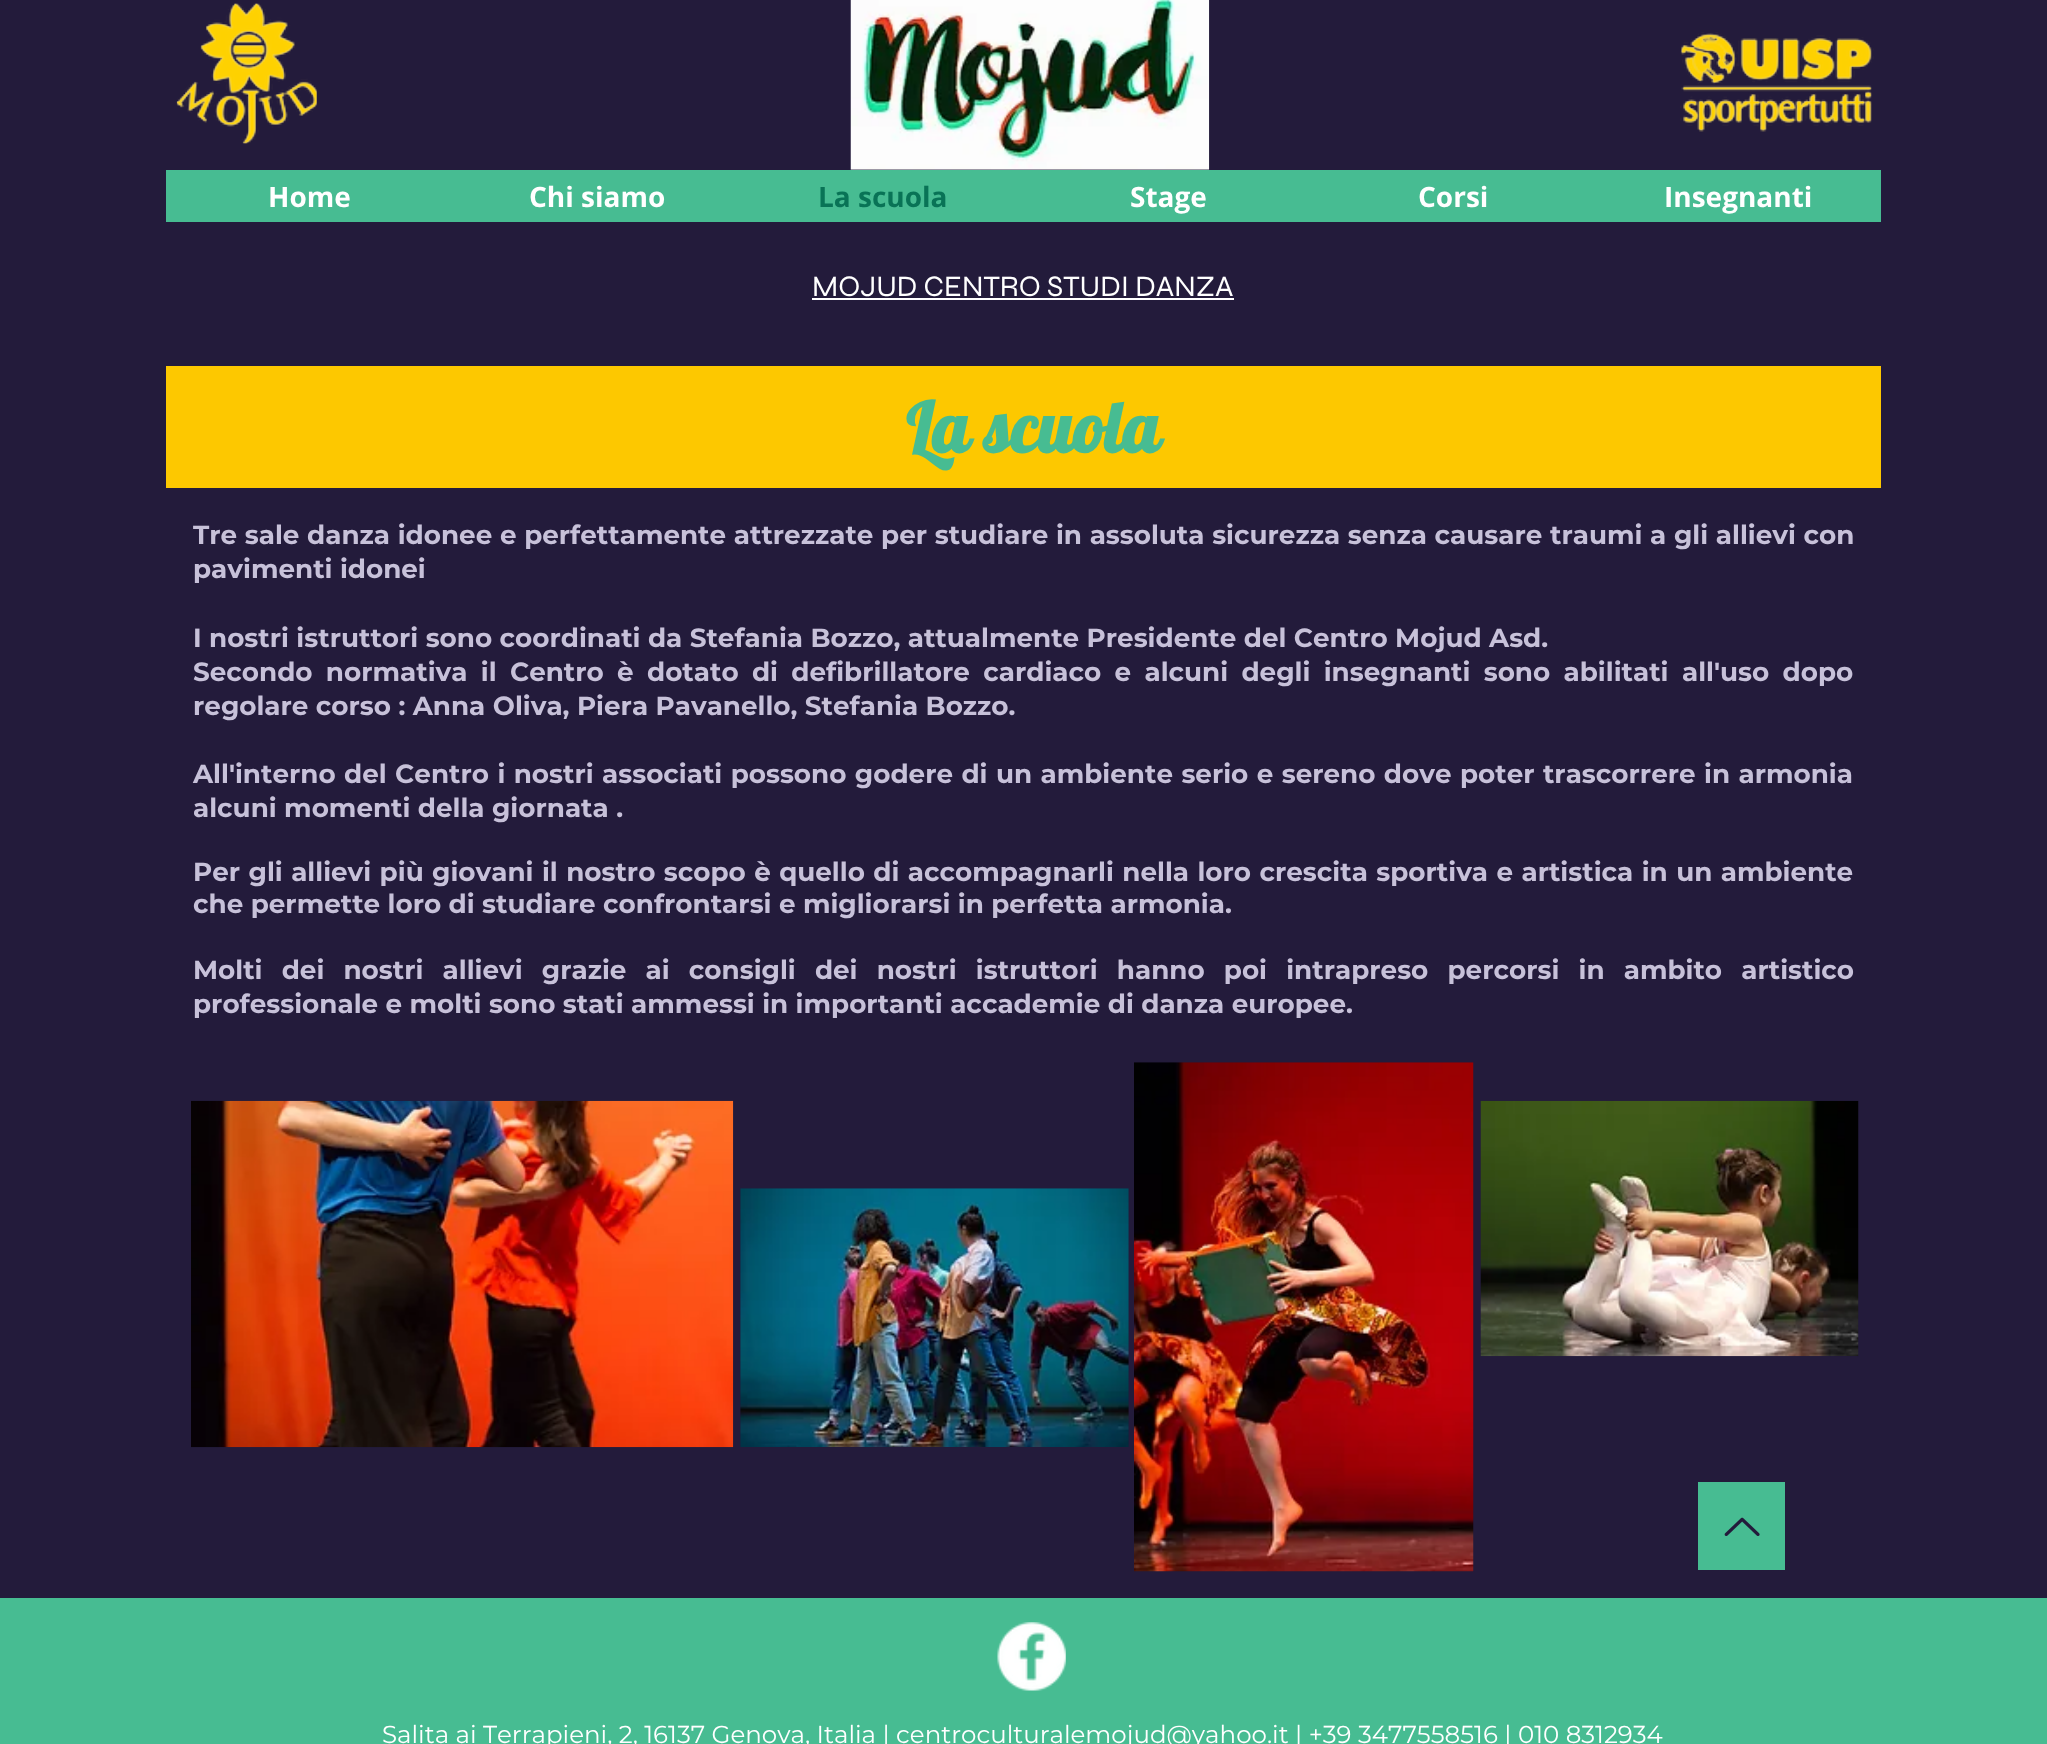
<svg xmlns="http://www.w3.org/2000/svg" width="2047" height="1744">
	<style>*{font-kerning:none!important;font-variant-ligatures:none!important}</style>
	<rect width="100%" height="100%" fill="#231B3B" />
	<image x="176" y="3" width="141" height="141" href="assets/img1.png" />
	<image x="850" y="0" width="360" height="170" href="assets/img2.png" />
	<image x="1680" y="32" width="194" height="100" href="assets/img3.png" />
	<rect x="166" y="170" width="1715" height="52" fill="#47BC92" />
	<g font-family="Open Sans" font-size="28" font-weight="700" fill="#FFFFFF">
		<text x="268" y="207">Home</text>
		<text x="529" y="207">Chi siamo</text>
	</g>
	<text x="818" y="207" font-family="Open Sans" font-size="28" font-weight="700" fill="#097356">La scuola</text>
	<g font-family="Open Sans" font-size="28" font-weight="700" fill="#FFFFFF">
		<text x="1130" y="207">Stage</text>
		<text x="1418" y="207">Corsi</text>
		<text x="1664" y="207">Insegnanti</text>
	</g>
	<text x="812" y="296" font-family="Syne" font-size="29.75" fill="#FFFFFF">MOJUD CENTRO STUDI DANZA</text>
	<rect x="812" y="298" width="422" height="2" fill="#FFFFFF" />
	<rect x="166" y="366" width="1715" height="122" fill="#FDC800" />
	<text x="906" y="453" font-family="Lobster" font-size="70" font-weight="700" fill="#47BC92">La scuola</text>
	<g font-family="Montserrat" font-size="26.25" font-weight="700" fill="#C7C1D9">
		<text x="193" y="544" word-spacing="0.25">Tre sale danza idonee e perfettamente attrezzate per studiare in assoluta sicurezza senza causare traumi a gli allievi con</text>
		<text x="193" y="578">pavimenti idonei</text>
		<text x="193" y="647">I nostri istruttori sono coordinati da Stefania Bozzo, attualmente Presidente del Centro Mojud Asd.</text>
		<text x="193" y="681" word-spacing="5.9">Secondo normativa il Centro è dotato di defibrillatore cardiaco e alcuni degli insegnanti sono abilitati</text>
		<text x="1682" y="681" word-spacing="5.9">all'uso dopo</text>
		<text x="193" y="715">regolare corso : Anna Oliva, Piera Pavanello, Stefania Bozzo.</text>
		<text x="193" y="783" word-spacing="1">All'interno del Centro i nostri associati possono godere di un ambiente serio e sereno dove poter trascorrere in armonia</text>
		<text x="193" y="817">alcuni momenti della giornata .</text>
		<text x="193" y="881" word-spacing="1">Per gli allievi più giovani il nostro scopo è quello di accompagnarli nella loro crescita sportiva e artistica in un ambiente</text>
		<text x="193" y="913">che permette loro di studiare confrontarsi e migliorarsi in perfetta armonia.</text>
		<text x="193" y="979" word-spacing="11.75">Molti dei nostri allievi grazie ai consigli dei nostri istruttori hanno poi intrapreso percorsi in ambito artistico</text>
		<text x="193" y="1013">professionale e molti sono stati ammessi in importanti accademie di danza europee.</text>
	</g>
	<image x="191" y="1100" width="543" height="348" href="assets/img4.png" />
	<image x="740" y="1188" width="389" height="259" href="assets/img5.png" />
	<image x="1134" y="1062" width="340" height="510" href="assets/img6.png" />
	<image x="1480" y="1100" width="379" height="257" href="assets/img7.png" />
	<rect x="1698" y="1482" width="87" height="88" fill="#47BC92" />
	<image x="1724" y="1517" width="36" height="19" href="assets/img8.png" />
	<rect x="0" y="1598" width="2047" height="146" fill="#47BC92" />
	<image x="997" y="1622" width="69" height="69" href="assets/img9.png" />
	<text x="382" y="1743" font-family="Montserrat" font-size="24.5" fill="#FFFFFF">Salita ai Terrapieni, 2, 16137 Genova, Italia | centroculturalemojud@yahoo.it | +39</text>
	<text x="1358" y="1743" font-family="Montserrat" font-size="24.5" fill="#FFFFFF">3477558516 | 010 8312934</text>
</svg>
